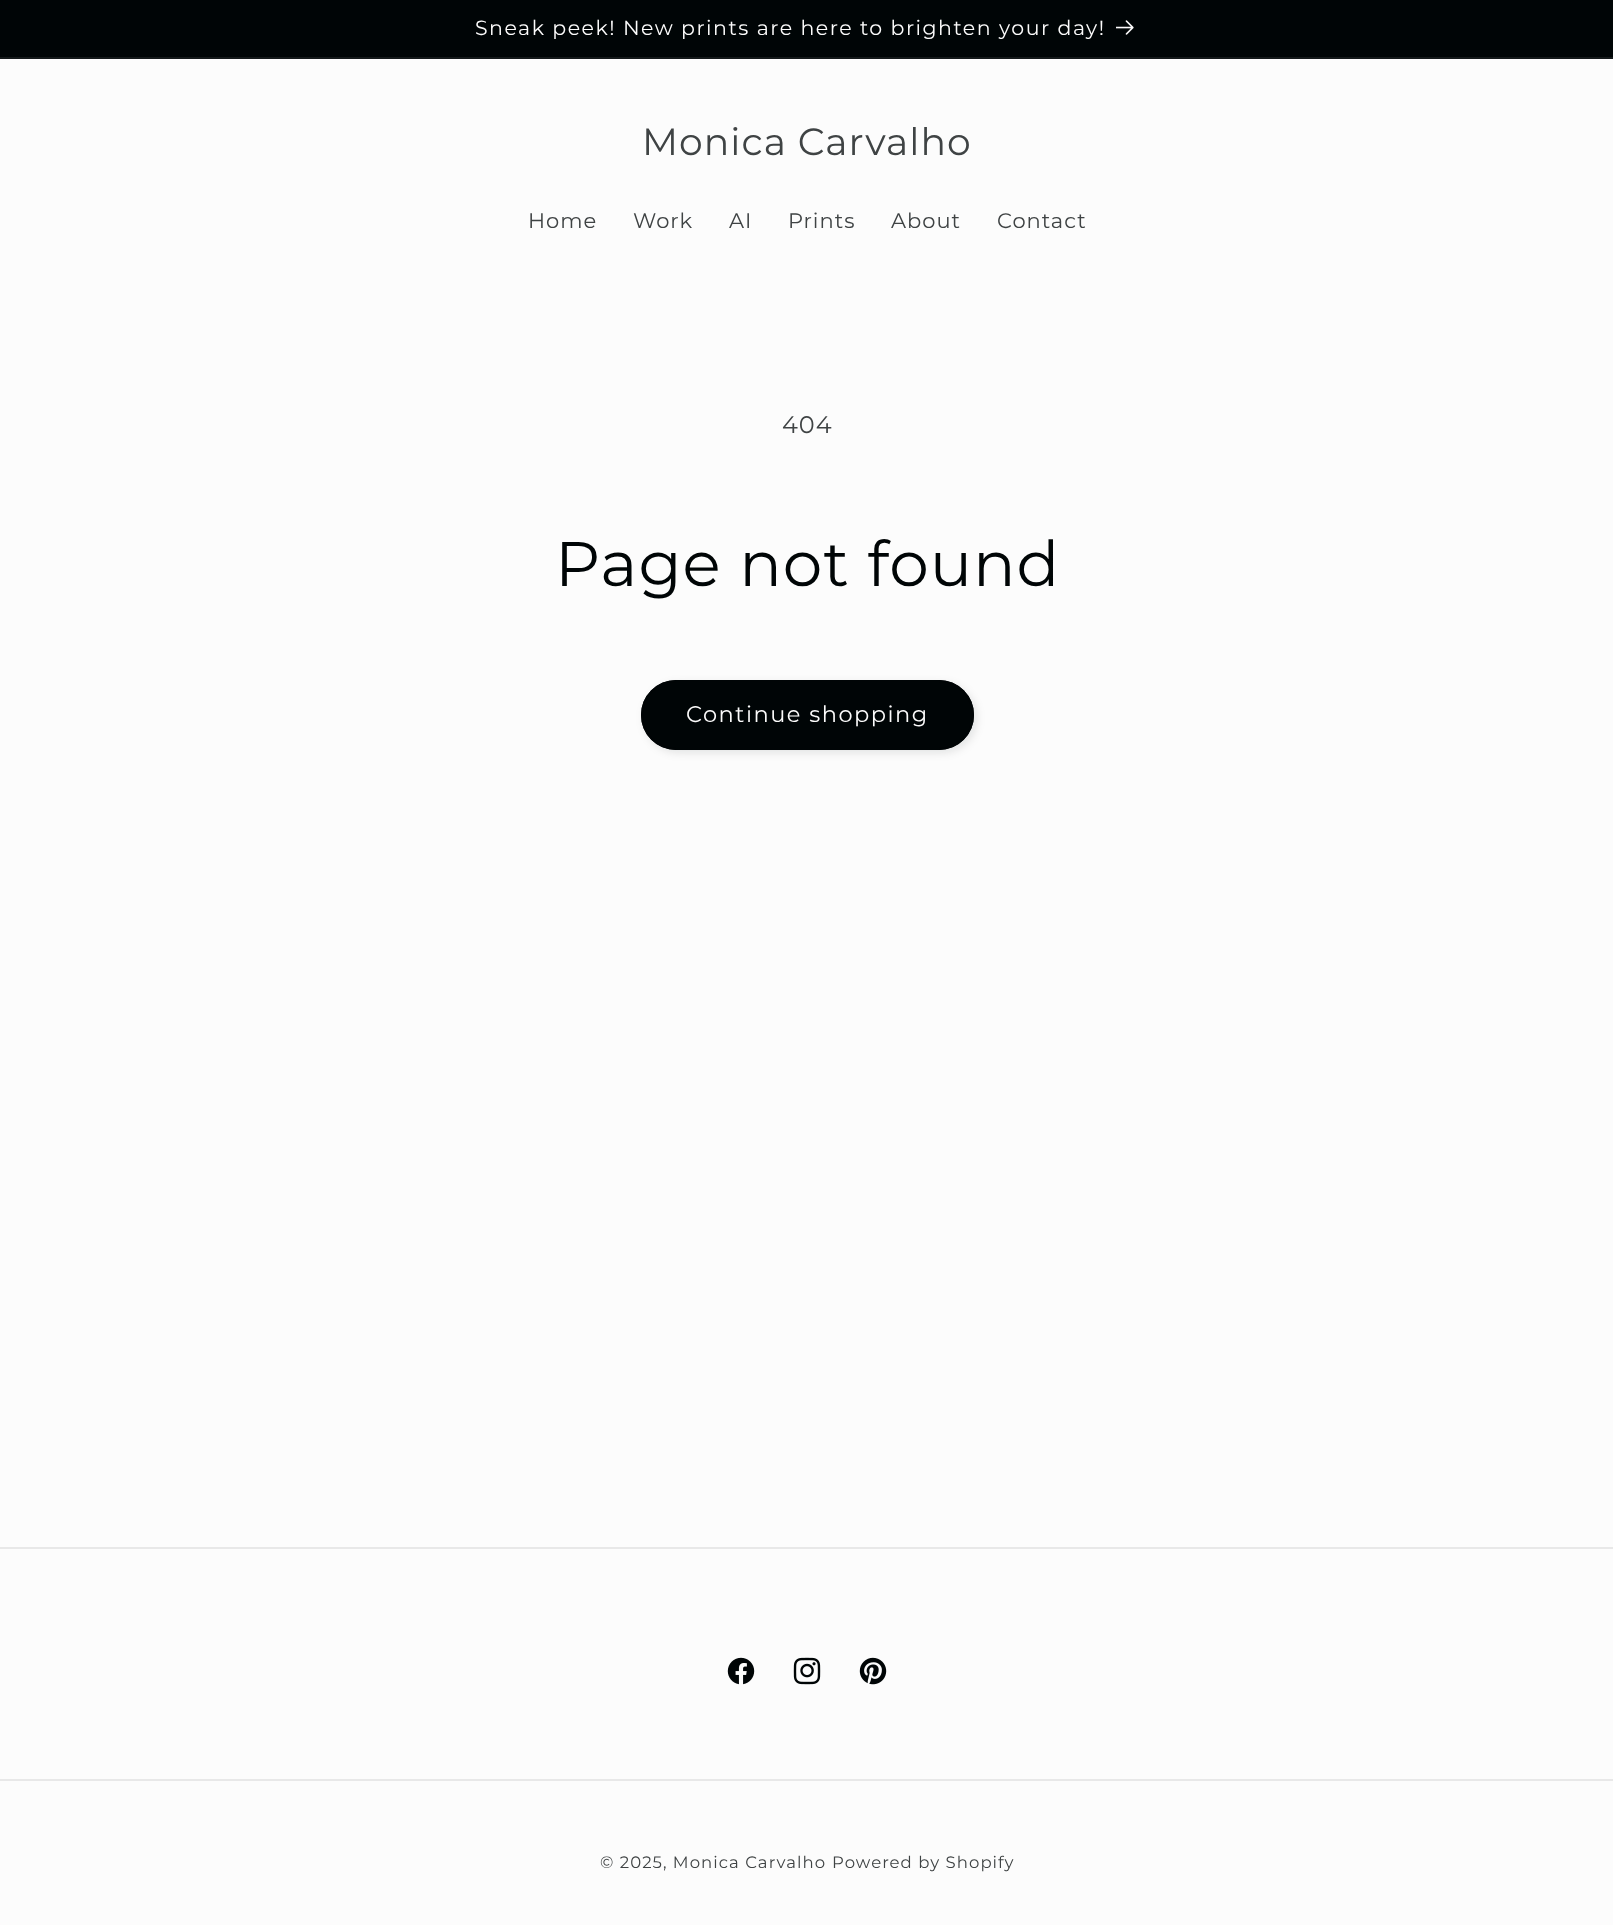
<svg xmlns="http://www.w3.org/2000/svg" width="1613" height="1925">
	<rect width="100%" height="100%" fill="#FCFCFC" />
	<rect x="0" y="0" width="1613" height="57" fill="#000506" />
	<rect x="0" y="57" width="1613" height="2" fill="#14191A" />
	<text x="475" y="35" font-family="Montserrat" font-size="20.5" letter-spacing="1.5" fill="#FCFCFC">Sneak peek! New prints are here to brighten your day!</text>
	<image x="1116" y="20" width="18" height="15" href="assets/img1.png" />
	<text x="642" y="155" font-family="Montserrat" font-size="37.75" letter-spacing="1" fill="#3F4344">Monica Carvalho</text>
	<g font-family="Montserrat" font-size="21" letter-spacing="1" fill="#3F4344">
		<text x="528" y="228">Home</text>
		<text x="633" y="228">Work</text>
		<text x="729" y="228">AI</text>
		<text x="788" y="228">Prints</text>
		<text x="891" y="228">About</text>
		<text x="997" y="228">Contact</text>
	</g>
	<text x="782" y="433" font-family="Montserrat" font-size="24" letter-spacing="1" fill="#3F4344">404</text>
	<text x="555" y="586" font-family="Montserrat" font-size="63" letter-spacing="1" fill="#000506">Page not found</text>
	<rect x="644" y="683" width="333" height="70" rx="35" fill="#000506" fill-opacity="0.1" filter="blur(4px)" />
	<rect x="641" y="680" width="333" height="70" rx="35" fill="#000506" />
	<rect x="642" y="681" width="331" height="68" rx="34" fill="none" stroke="#000506" stroke-width="2" />
	<text x="686" y="722" font-family="Montserrat" font-size="22.5" letter-spacing="1.5" fill="#FCFCFC">Continue shopping</text>
	<rect x="0" y="1547" width="1613" height="2" fill="#E8E8E8" />
	<image x="727" y="1657" width="28" height="28" href="assets/img2.png" />
	<image x="793" y="1657" width="28" height="28" href="assets/img3.png" />
	<image x="859" y="1657" width="28" height="28" href="assets/img4.png" />
	<rect x="0" y="1779" width="1613" height="2" fill="#E8E8E8" />
	<g font-family="Montserrat" font-size="16.5" letter-spacing="1.05" fill="#3F4344">
		<text x="600" y="1868">© 2025, Monica Carvalho</text>
		<text x="832" y="1868">Powered by Shopify</text>
	</g>
</svg>
